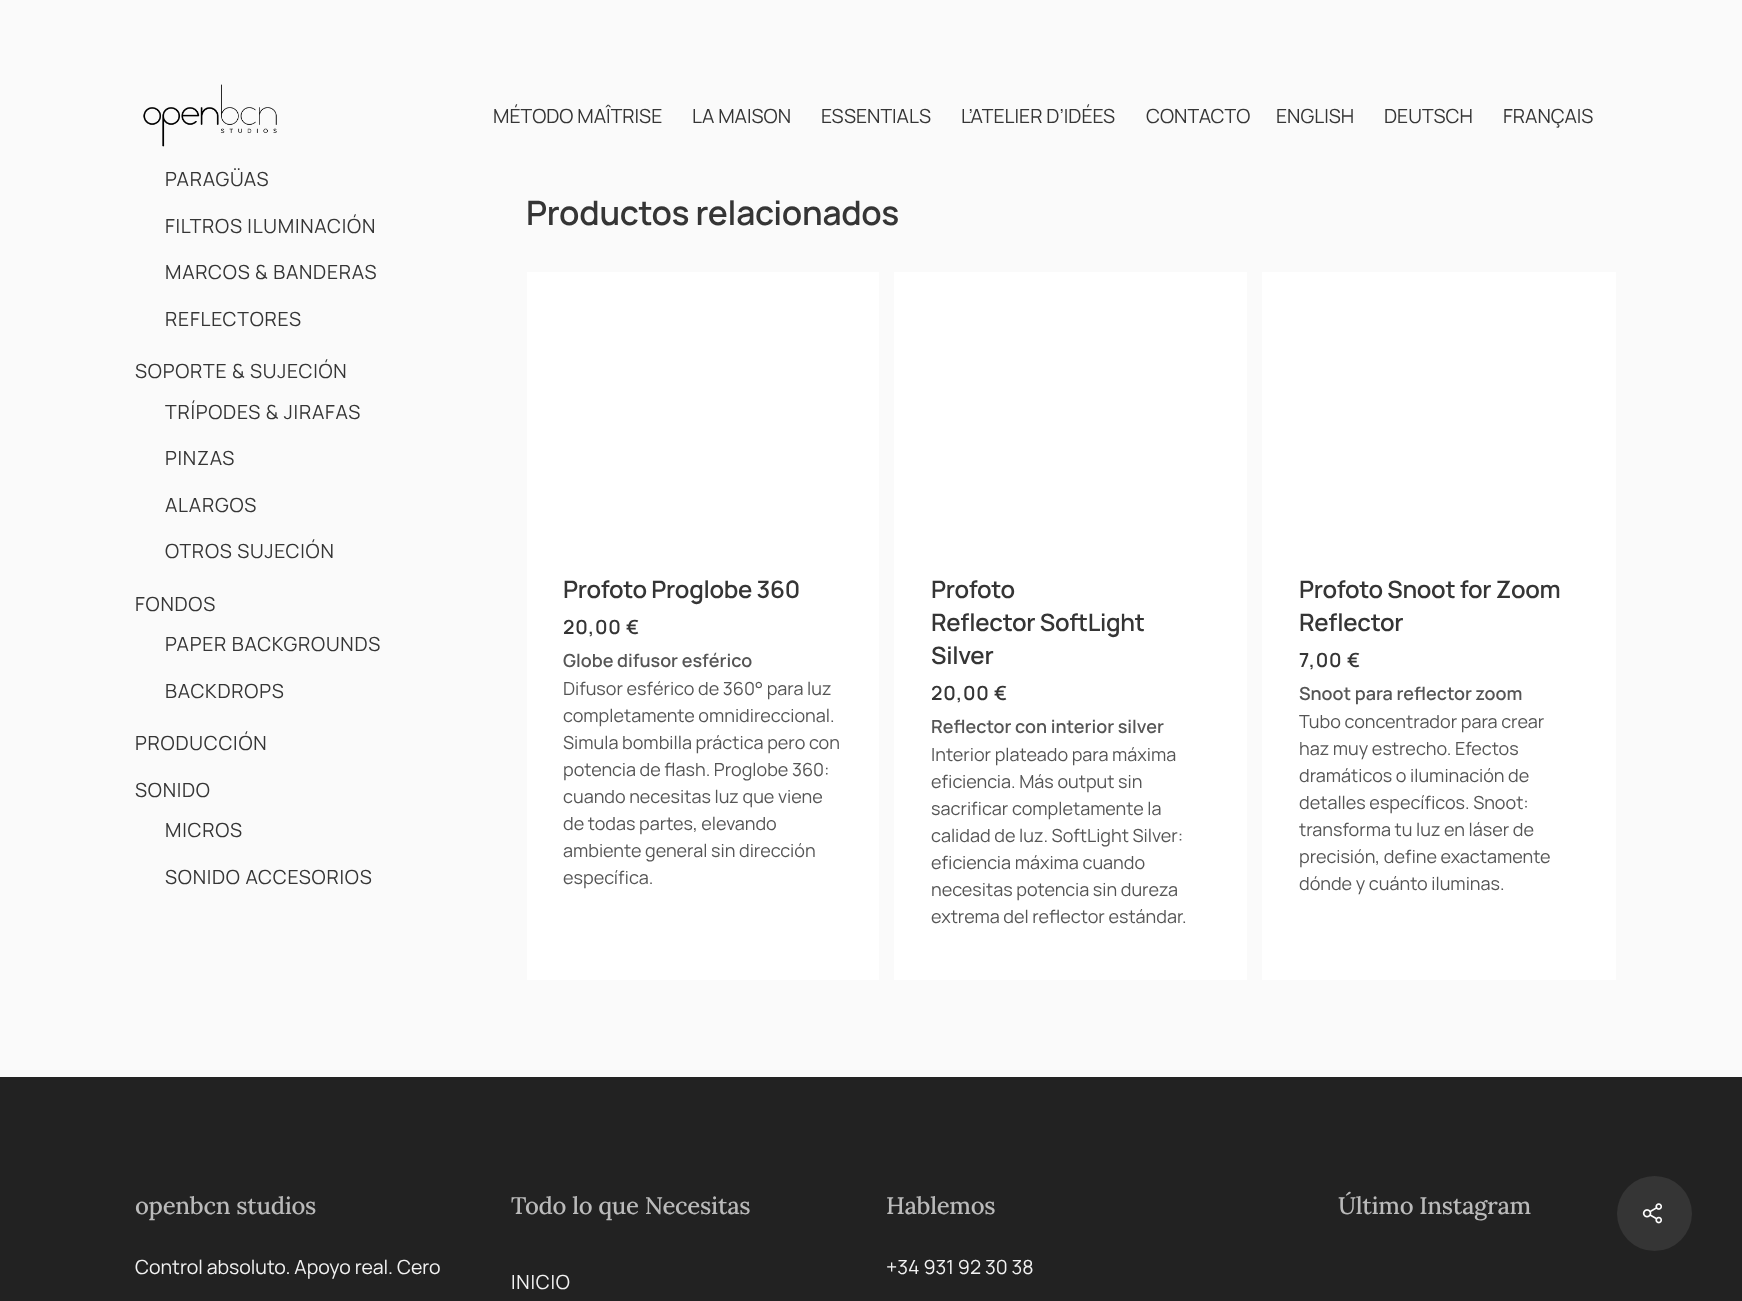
<svg xmlns="http://www.w3.org/2000/svg" width="1742" height="1301">
	<rect width="100%" height="100%" fill="#FAFAFA" />
	<image x="143" y="84" width="134" height="63" href="assets/img1.png" />
	<g font-family="Manrope" font-size="19.5" fill="#353535">
		<text x="493" y="123">MÉTODO MAÎTRISE</text>
		<text x="692" y="123">LA MAISON</text>
		<text x="821" y="123">ESSENTIALS</text>
		<text x="961" y="123">L’ATELIER D’IDÉES</text>
		<text x="1146" y="123">CONTACTO</text>
		<text x="1276" y="123">ENGLISH</text>
		<text x="1384" y="123">DEUTSCH</text>
		<text x="1503" y="123">FRANÇAIS</text>
	</g>
	<g font-family="Manrope" font-size="19.5" letter-spacing="0.75" fill="#353535">
		<text x="165" y="186">PARAGÜAS</text>
		<text x="165" y="233">FILTROS ILUMINACIÓN</text>
		<text x="165" y="279">MARCOS &amp; BANDERAS</text>
		<text x="165" y="326">REFLECTORES</text>
		<text x="135" y="378">SOPORTE &amp; SUJECIÓN</text>
		<text x="165" y="419">TRÍPODES &amp; JIRAFAS</text>
		<text x="165" y="465">PINZAS</text>
		<text x="165" y="512">ALARGOS</text>
		<text x="165" y="558">OTROS SUJECIÓN</text>
		<text x="135" y="611">FONDOS</text>
		<text x="165" y="651">PAPER BACKGROUNDS</text>
		<text x="165" y="698">BACKDROPS</text>
		<text x="135" y="750">PRODUCCIÓN</text>
		<text x="135" y="797">SONIDO</text>
		<text x="165" y="837">MICROS</text>
		<text x="165" y="884">SONIDO ACCESORIOS</text>
	</g>
	<text x="526" y="225" font-family="Manrope" font-size="33.6" font-weight="600" letter-spacing="-0.3" fill="#353535">Productos relacionados</text>
	<rect x="527" y="272" width="352" height="708" fill="#FFFFFF" />
	<text x="563" y="598" font-family="Manrope" font-size="24" font-weight="600" letter-spacing="-0.3" fill="#353535">Profoto Proglobe 360</text>
	<text x="563" y="634" font-family="Manrope" font-size="19.5" font-weight="600" letter-spacing="0.75" fill="#353535">20,00 €</text>
	<text x="563" y="667" font-family="Manrope" font-size="18" font-weight="600" fill="#555555">Globe difusor esférico</text>
	<g font-family="Manrope" font-size="18" fill="#555555">
		<text x="563" y="695">Difusor esférico de 360° para luz</text>
		<text x="563" y="722">completamente omnidireccional.</text>
		<text x="563" y="749">Simula bombilla práctica pero con</text>
		<text x="563" y="776">potencia de flash. Proglobe 360:</text>
		<text x="563" y="803">cuando necesitas luz que viene</text>
		<text x="563" y="830">de todas partes, elevando</text>
		<text x="563" y="857">ambiente general sin dirección</text>
		<text x="563" y="884">específica.</text>
	</g>
	<rect x="894" y="272" width="353" height="708" fill="#FFFFFF" />
	<g font-family="Manrope" font-size="24" font-weight="600" letter-spacing="-0.3" fill="#353535">
		<text x="931" y="598">Profoto</text>
		<text x="931" y="631">Reflector SoftLight</text>
		<text x="931" y="664">Silver</text>
	</g>
	<text x="931" y="700" font-family="Manrope" font-size="19.5" font-weight="600" letter-spacing="0.75" fill="#353535">20,00 €</text>
	<text x="931" y="733" font-family="Manrope" font-size="18" font-weight="600" fill="#555555">Reflector con interior silver</text>
	<g font-family="Manrope" font-size="18" fill="#555555">
		<text x="931" y="761">Interior plateado para máxima</text>
		<text x="931" y="788">eficiencia. Más output sin</text>
		<text x="931" y="815">sacrificar completamente la</text>
		<text x="931" y="842">calidad de luz. SoftLight Silver:</text>
		<text x="931" y="869">eficiencia máxima cuando</text>
		<text x="931" y="896">necesitas potencia sin dureza</text>
		<text x="931" y="923">extrema del reflector estándar.</text>
	</g>
	<rect x="1262" y="272" width="354" height="708" fill="#FFFFFF" />
	<g font-family="Manrope" font-size="24" font-weight="600" letter-spacing="-0.3" fill="#353535">
		<text x="1299" y="598">Profoto Snoot for Zoom</text>
		<text x="1299" y="631">Reflector</text>
	</g>
	<text x="1299" y="667" font-family="Manrope" font-size="19.5" font-weight="600" letter-spacing="0.75" fill="#353535">7,00 €</text>
	<text x="1299" y="700" font-family="Manrope" font-size="18" font-weight="600" fill="#555555">Snoot para reflector zoom</text>
	<g font-family="Manrope" font-size="18" fill="#555555">
		<text x="1299" y="728">Tubo concentrador para crear</text>
		<text x="1299" y="755">haz muy estrecho. Efectos</text>
		<text x="1299" y="782">dramáticos o iluminación de</text>
		<text x="1299" y="809">detalles específicos. Snoot:</text>
		<text x="1299" y="836">transforma tu luz en láser de</text>
		<text x="1299" y="863">precisión, define exactamente</text>
		<text x="1299" y="890">dónde y cuánto iluminas.</text>
	</g>
	<rect x="0" y="1077" width="1742" height="224" fill="#222222" />
	<text x="135" y="1214" font-family="Lora" font-size="24" font-weight="500" letter-spacing="-0.3" fill="#BABABA">openbcn studios</text>
	<text x="135" y="1274" font-family="Manrope" font-size="19.5" fill="#F2F2F2">Control absoluto. Apoyo real. Cero</text>
	<text x="511" y="1214" font-family="Lora" font-size="24" font-weight="500" letter-spacing="-0.3" fill="#BABABA">Todo lo que Necesitas</text>
	<text x="511" y="1289" font-family="Manrope" font-size="19.5" letter-spacing="0.75" fill="#F2F2F2">INICIO</text>
	<text x="886" y="1214" font-family="Lora" font-size="24" font-weight="500" letter-spacing="-0.3" fill="#BABABA">Hablemos</text>
	<text x="886" y="1274" font-family="Manrope" font-size="19.5" fill="#F2F2F2">+34 931 92 30 38</text>
	<text x="1338" y="1214" font-family="Lora" font-size="24" font-weight="500" letter-spacing="-0.3" fill="#BABABA">Último Instagram</text>
	<circle cx="1654.5" cy="1213.5" r="37.5" fill="#353535" />
	<image x="1642" y="1203" width="20" height="21" href="assets/img2.png" />
</svg>
